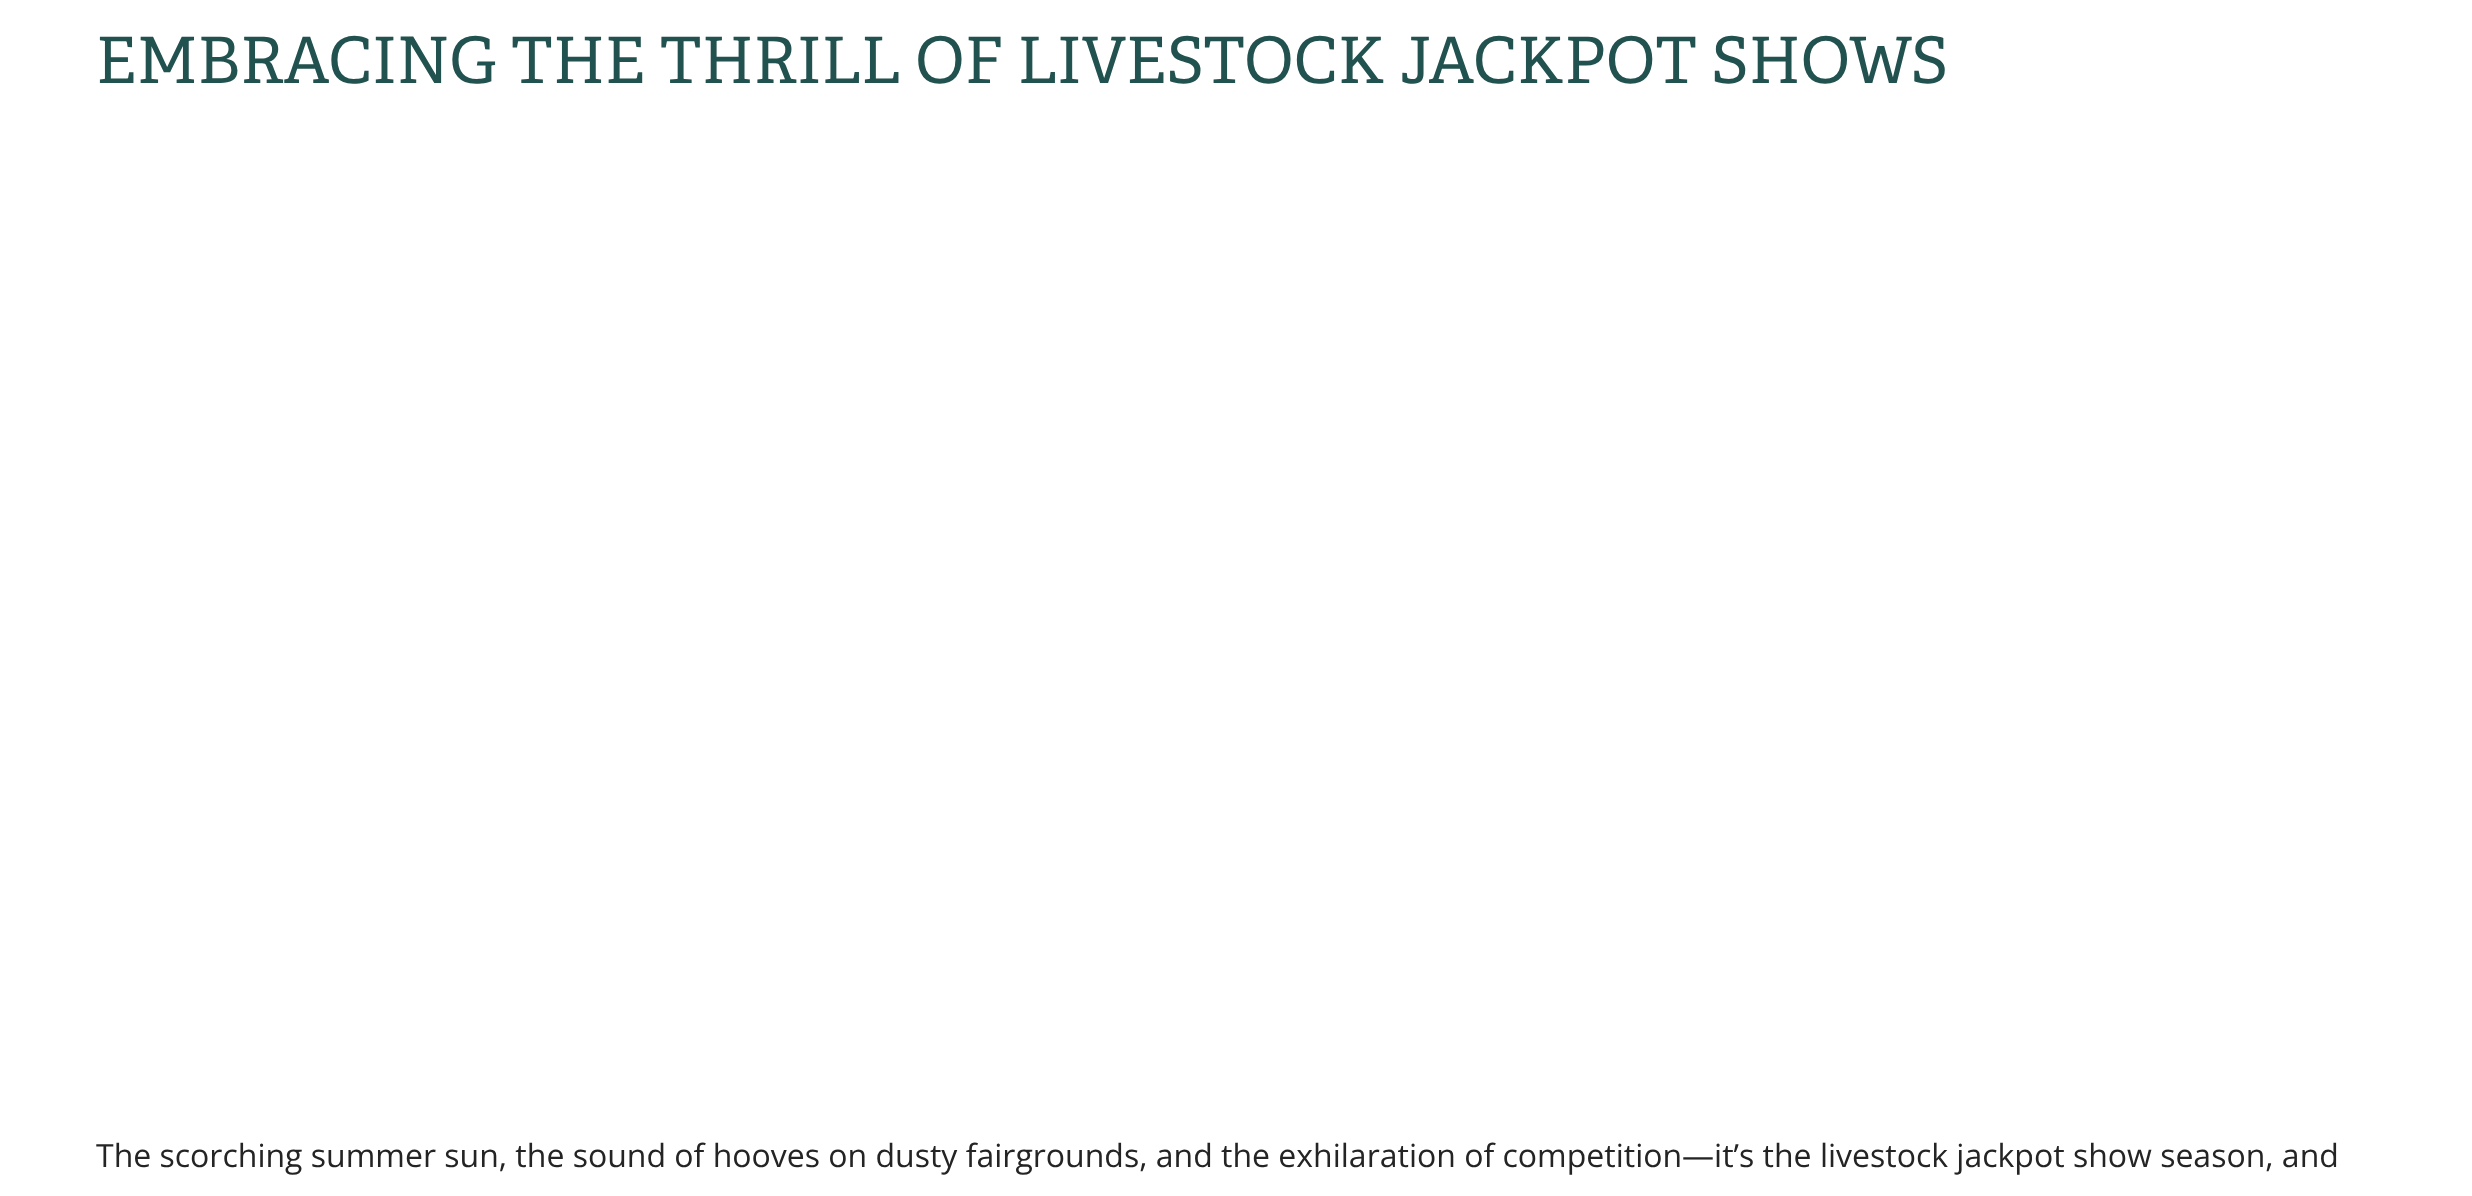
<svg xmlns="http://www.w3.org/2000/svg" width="2472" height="1196">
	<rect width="100%" height="100%" fill="#FFFFFF" />
	<text x="96" y="83" font-family="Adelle" font-size="64" fill="#21524F">EMBRACING THE THRILL OF LIVESTOCK JACKPOT SHOWS</text>
	<text x="96" y="1167" font-family="Open Sans" font-size="32" fill="#242424">The scorching summer sun, the sound of hooves on dusty fairgrounds, and the exhilaration of competition—it’s the livestock jackpot show season, and</text>
</svg>
